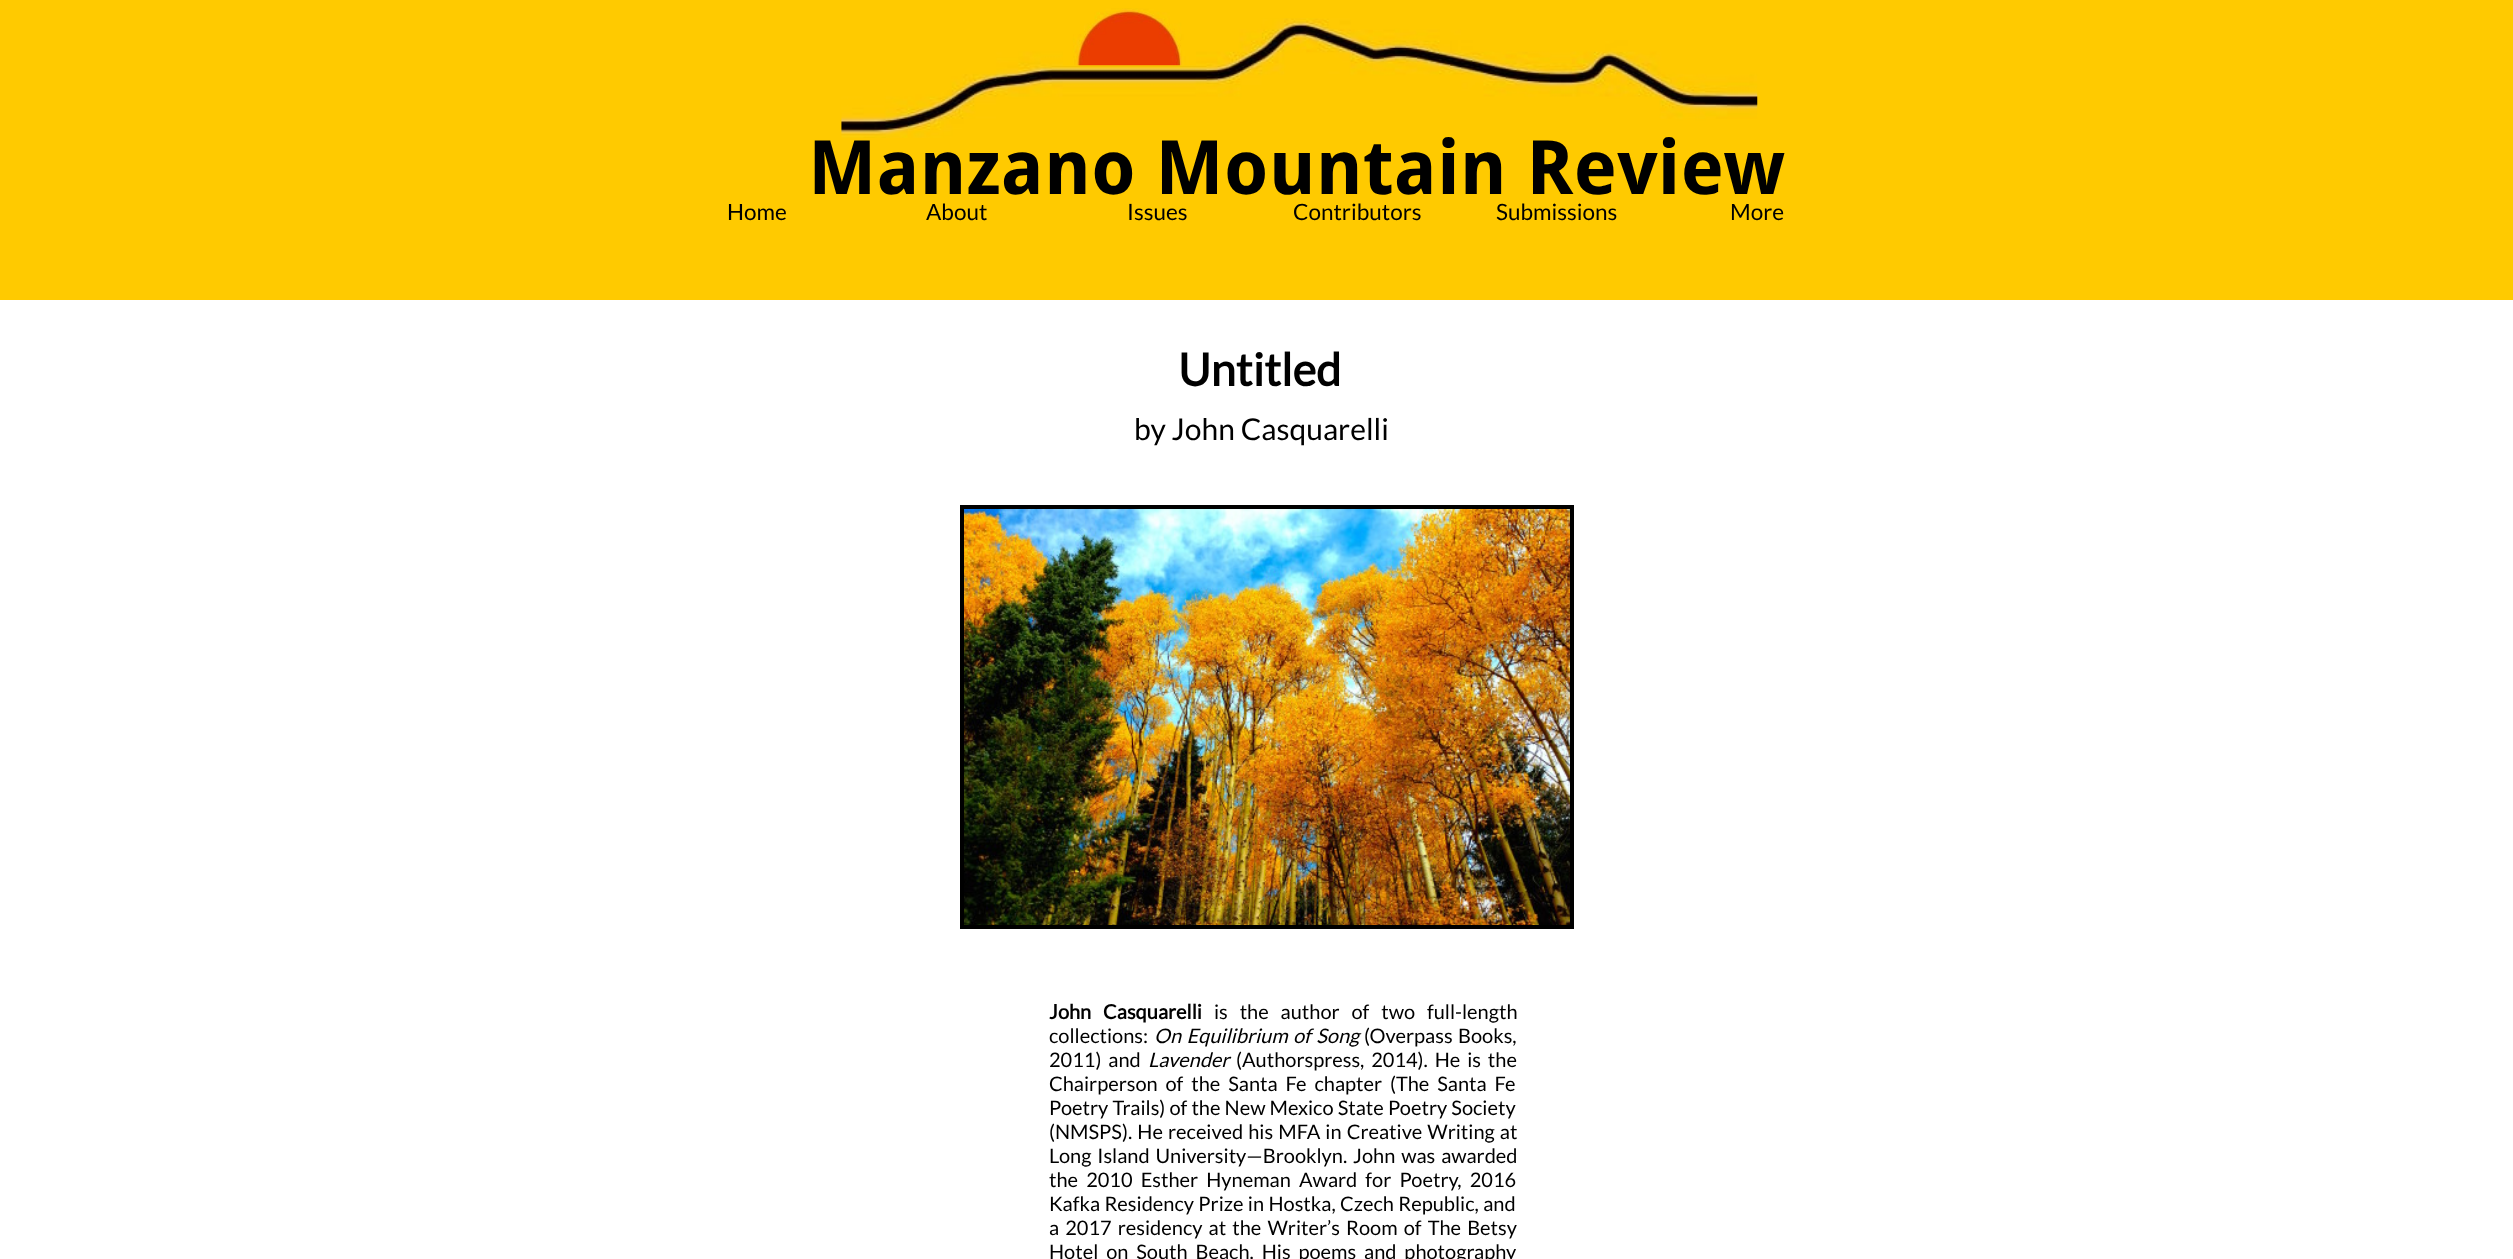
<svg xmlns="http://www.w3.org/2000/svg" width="2513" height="1259">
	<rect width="100%" height="100%" fill="#FFFFFF" />
	<rect x="0" y="0" width="2513" height="300" fill="#FFCA00" />
	<image x="841" y="18" width="917" height="120" href="assets/img2.png" />
	<image x="1063" y="8" width="133" height="58" href="assets/img1.png" />
	<text x="808" y="194" font-family="Droid Sans" font-size="75" font-weight="700" fill="#000000">Manzano Mountain Review</text>
	<g font-family="Lato" font-size="22.5" fill="#000000">
		<text x="727" y="220">Home</text>
		<text x="926" y="220">About</text>
		<text x="1127" y="220">Issues</text>
		<text x="1293" y="220">Contributors</text>
		<text x="1496" y="220">Submissions</text>
		<text x="1730" y="220">More</text>
	</g>
	<text x="1178" y="386" font-family="Lato" font-size="45" font-weight="700" fill="#000000">Untitled</text>
	<text x="1134" y="440" font-family="Lato" font-size="30" fill="#000000">by John Casquarelli</text>
	<image x="964" y="509" width="606" height="416" href="assets/img3.png" />
	<rect x="962" y="507" width="610" height="420" fill="none" stroke="#000000" stroke-width="4" />
	<text x="1049" y="1019" word-spacing="8" font-family="Lato" font-size="20" font-weight="700" fill="#000000">John Casquarelli</text>
	<g font-family="Lato" font-size="20" fill="#000000">
		<text x="1214" y="1019" word-spacing="8">is the author of two full-length</text>
		<text x="1049" y="1043">collections:</text>
	</g>
	<text x="1154" y="1043" word-spacing="1.5" font-family="Lato" font-size="20" font-style="italic" fill="#000000">On Equilibrium of Song</text>
	<g font-family="Lato" font-size="20" fill="#000000">
		<text x="1364" y="1043" word-spacing="1.5">(Overpass Books,</text>
		<text x="1049" y="1067" word-spacing="3">2011) and</text>
	</g>
	<text x="1148" y="1067" font-family="Lato" font-size="20" font-style="italic" fill="#000000">Lavender</text>
	<g font-family="Lato" font-size="20" fill="#000000">
		<text x="1236" y="1067" word-spacing="3">(Authorspress, 2014). He is the</text>
		<text x="1049" y="1091" word-spacing="4">Chairperson of the Santa Fe chapter (The Santa Fe</text>
		<text x="1049" y="1115" word-spacing="0.25">Poetry Trails) of the New Mexico State Poetry Society</text>
		<text x="1049" y="1139" word-spacing="1.25">(NMSPS). He received his MFA in Creative Writing at</text>
		<text x="1049" y="1163" word-spacing="2">Long Island University—Brooklyn. John was awarded</text>
		<text x="1049" y="1187" word-spacing="4.25">the 2010 Esther Hyneman Award for Poetry, 2016</text>
		<text x="1049" y="1211" word-spacing="0.5">Kafka Residency Prize in Hostka, Czech Republic, and</text>
		<text x="1049" y="1235" word-spacing="2.25">a 2017 residency at the Writer’s Room of The Betsy</text>
		<text x="1049" y="1259" word-spacing="4">Hotel on South Beach. His poems and photography</text>
	</g>
</svg>
